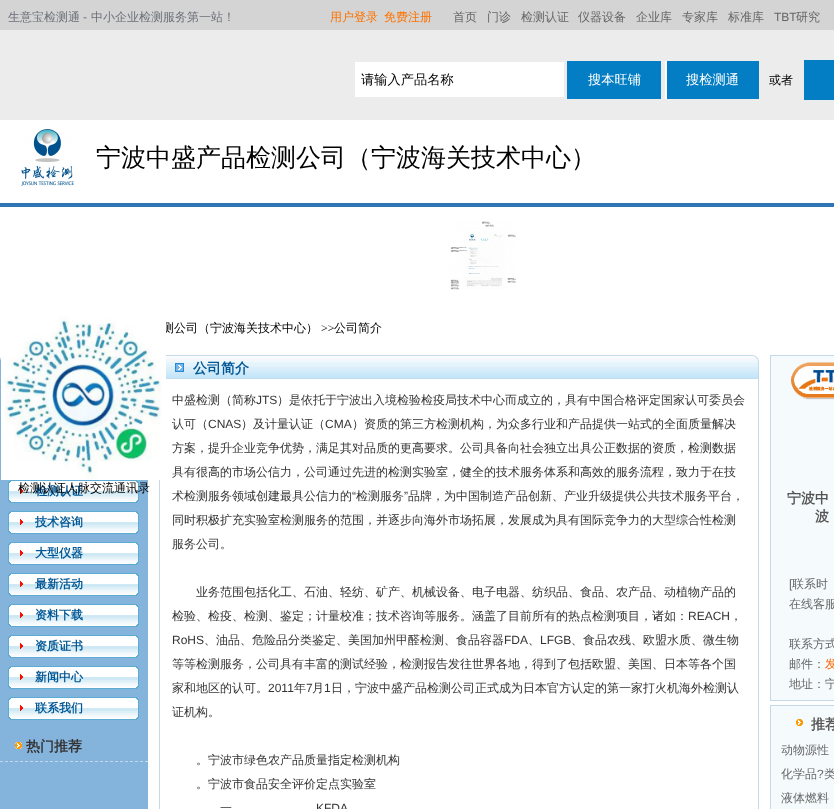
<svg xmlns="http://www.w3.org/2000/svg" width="834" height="809">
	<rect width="100%" height="100%" fill="#FFFFFF" />
	<rect x="0" y="0" width="834" height="30" fill="#D4D4D4" />
	<text x="8" y="21" font-family="WenQuanYi Zen Hei" font-size="12" font-weight="500" fill="#6B6F78">生意宝检测通</text>
	<text x="83" y="21" font-family="Liberation Sans" font-size="12" fill="#6B6F78">-</text>
	<text x="91" y="21" font-family="WenQuanYi Zen Hei" font-size="12" font-weight="500" fill="#6B6F78">中小企业检测服务第一站！</text>
	<g font-family="WenQuanYi Zen Hei" font-size="12" font-weight="500" fill="#FD7201">
		<text x="330" y="21">用户登录</text>
		<text x="384" y="21">免费注册</text>
	</g>
	<g font-family="WenQuanYi Zen Hei" font-size="12" font-weight="500" fill="#666666">
		<text x="453" y="21">首页</text>
		<text x="487" y="21">门诊</text>
		<text x="521" y="21">检测认证</text>
		<text x="578" y="21">仪器设备</text>
		<text x="636" y="21">企业库</text>
		<text x="682" y="21">专家库</text>
		<text x="728" y="21">标准库</text>
	</g>
	<text x="774" y="21" font-family="Liberation Sans" font-size="12" fill="#666666">TBT</text>
	<text x="796" y="21" font-family="WenQuanYi Zen Hei" font-size="12" font-weight="500" fill="#666666">研究</text>
	<rect x="0" y="30" width="834" height="90" fill="#ECECEC" />
	<rect x="355" y="62" width="209" height="35" fill="#FFFFFF" />
	<text x="361" y="84" font-family="WenQuanYi Zen Hei" font-size="13.25" font-weight="500" fill="#000000">请输入产品名称</text>
	<rect x="567" y="61" width="94" height="38" fill="#037EC4" />
	<text x="588" y="84" font-family="WenQuanYi Zen Hei" font-size="13.25" font-weight="500" fill="#FFFFFF">搜本旺铺</text>
	<rect x="667" y="61" width="92" height="38" fill="#037EC4" />
	<rect x="665" y="61" width="2" height="38" fill="#FFFFFF" />
	<text x="686" y="84" font-family="WenQuanYi Zen Hei" font-size="13.25" font-weight="500" fill="#FFFFFF">搜检测通</text>
	<text x="769" y="84" font-family="WenQuanYi Zen Hei" font-size="12" font-weight="500" fill="#000000">或者</text>
	<rect x="804" y="60" width="30" height="40" fill="#037EC4" />
	<image x="21" y="129" width="53" height="57" href="assets/img1.png" />
	<text x="96" y="166" font-family="WenQuanYi Zen Hei" font-size="25" font-weight="500" fill="#000000">宁波中盛产品检测公司（宁波海关技术中心）</text>
	<rect x="0" y="203" width="834" height="4" fill="#3076B7" />
	<image x="450" y="221" width="66" height="69" href="assets/img2.png" />
	<text x="162" y="332" font-family="WenQuanYi Zen Hei" font-size="12" font-weight="500" fill="#000000">测公司（宁波海关技术中心）</text>
	<text x="321" y="332" font-family="Liberation Serif" font-size="12" fill="#000000">&gt;&gt;</text>
	<text x="334" y="332" font-family="WenQuanYi Zen Hei" font-size="12" font-weight="500" fill="#000000">公司简介</text>
	<rect x="0" y="361" width="148" height="448" fill="#84B3DB" />
	<image x="1" y="316" width="165" height="164" href="assets/img3.png" />
	<image x="8" y="480" width="131" height="23" href="assets/img6.png" />
	<text x="35" y="495" font-family="WenQuanYi Zen Hei" font-size="12" font-weight="700" fill="#005795">检测认证</text>
	<text x="18" y="492" font-family="WenQuanYi Zen Hei" font-size="12" font-weight="500" fill="#000000">检测认证人脉交流通讯录</text>
	<image x="166" y="355" width="593" height="24" href="assets/img4.png" />
	<text x="193" y="373" font-family="WenQuanYi Zen Hei" font-size="14" font-weight="700" fill="#005795">公司简介</text>
	<rect x="758" y="379" width="1" height="430" fill="#C3D9EA" />
	<rect x="159" y="480" width="1" height="329" fill="#C3D9EA" />
	<text x="172" y="404" font-family="WenQuanYi Zen Hei" font-size="12" font-weight="500" fill="#333333">中盛检测（简称</text>
	<text x="256" y="404" font-family="Liberation Sans" font-size="12" fill="#333333">JTS</text>
	<g font-family="WenQuanYi Zen Hei" font-size="12" font-weight="500" fill="#333333">
		<text x="277" y="404">）是依托于宁波出入境检验检疫局技术中心而成立的，具有中国合格评定国家认可委员会</text>
		<text x="172" y="428">认可（</text>
	</g>
	<text x="208" y="428" font-family="Liberation Sans" font-size="12" fill="#333333">CNAS</text>
	<text x="241" y="428" font-family="WenQuanYi Zen Hei" font-size="12" font-weight="500" fill="#333333">）及计量认证（</text>
	<text x="325" y="428" font-family="Liberation Sans" font-size="12" fill="#333333">CMA</text>
	<g font-family="WenQuanYi Zen Hei" font-size="12" font-weight="500" fill="#333333">
		<text x="352" y="428">）资质的第三方检测机构，为众多行业和产品提供一站式的全面质量解决</text>
		<text x="172" y="452">方案，提升企业竞争优势，满足其对品质的更高要求。公司具备向社会独立出具公正数据的资质，检测数据</text>
		<text x="172" y="476">具有很高的市场公信力，公司通过先进的检测实验室，健全的技术服务体系和高效的服务流程，致力于在技</text>
		<text x="172" y="500">术检测服务领域创建最具公信力的</text>
	</g>
	<text x="352" y="500" font-family="Liberation Sans" font-size="12" fill="#333333">“</text>
	<text x="356" y="500" font-family="WenQuanYi Zen Hei" font-size="12" font-weight="500" fill="#333333">检测服务</text>
	<text x="404" y="500" font-family="Liberation Sans" font-size="12" fill="#333333">”</text>
	<g font-family="WenQuanYi Zen Hei" font-size="12" font-weight="500" fill="#333333">
		<text x="408" y="500">品牌，为中国制造产品创新、产业升级提供公共技术服务平台，</text>
		<text x="172" y="524">同时积极扩充实验室检测服务的范围，并逐步向海外市场拓展，发展成为具有国际竞争力的大型综合性检测</text>
		<text x="172" y="548">服务公司。</text>
		<text x="196" y="596">业务范围包括化工、石油、轻纺、矿产、机械设备、电子电器、纺织品、食品、农产品、动植物产品的</text>
		<text x="172" y="620">检验、检疫、检测、鉴定；计量校准；技术咨询等服务。涵盖了目前所有的热点检测项目，诸如：</text>
	</g>
	<text x="688" y="620" font-family="Liberation Sans" font-size="12" fill="#333333">REACH</text>
	<text x="730" y="620" font-family="WenQuanYi Zen Hei" font-size="12" font-weight="500" fill="#333333">，</text>
	<text x="172" y="644" font-family="Liberation Sans" font-size="12" fill="#333333">RoHS</text>
	<text x="204" y="644" font-family="WenQuanYi Zen Hei" font-size="12" font-weight="500" fill="#333333">、油品、危险品分类鉴定、美国加州甲醛检测、食品容器</text>
	<text x="504" y="644" font-family="Liberation Sans" font-size="12" fill="#333333">FDA</text>
	<text x="528" y="644" font-family="WenQuanYi Zen Hei" font-size="12" font-weight="500" fill="#333333">、</text>
	<text x="540" y="644" font-family="Liberation Sans" font-size="12" fill="#333333">LFGB</text>
	<g font-family="WenQuanYi Zen Hei" font-size="12" font-weight="500" fill="#333333">
		<text x="571" y="644">、食品农残、欧盟水质、微生物</text>
		<text x="172" y="668">等等检测服务，公司具有丰富的测试经验，检测报告发往世界各地，得到了包括欧盟、美国、日本等各个国</text>
		<text x="172" y="692">家和地区的认可。</text>
	</g>
	<text x="268" y="692" font-family="Liberation Sans" font-size="12" fill="#333333">2011</text>
	<text x="294" y="692" font-family="WenQuanYi Zen Hei" font-size="12" font-weight="500" fill="#333333">年</text>
	<text x="306" y="692" font-family="Liberation Sans" font-size="12" fill="#333333">7</text>
	<text x="312" y="692" font-family="WenQuanYi Zen Hei" font-size="12" font-weight="500" fill="#333333">月</text>
	<text x="324" y="692" font-family="Liberation Sans" font-size="12" fill="#333333">1</text>
	<g font-family="WenQuanYi Zen Hei" font-size="12" font-weight="500" fill="#333333">
		<text x="331" y="692">日，宁波中盛产品检测公司正式成为日本官方认定的第一家打火机海外检测认</text>
		<text x="172" y="716">证机构。</text>
		<text x="196" y="764">。宁波市绿色农产品质量指定检测机构</text>
		<text x="196" y="788">。宁波市食品安全评价定点实验室</text>
		<text x="220" y="812">一</text>
	</g>
	<text x="316" y="812" font-family="Liberation Sans" font-size="12" fill="#333333">KFDA</text>
	<image x="0" y="355" width="1" height="6" href="assets/img5.png" />
	<image x="8" y="511" width="131" height="23" href="assets/img6.png" />
	<text x="35" y="526" font-family="WenQuanYi Zen Hei" font-size="12" font-weight="700" fill="#005795">技术咨询</text>
	<image x="8" y="542" width="131" height="23" href="assets/img6.png" />
	<text x="35" y="557" font-family="WenQuanYi Zen Hei" font-size="12" font-weight="700" fill="#005795">大型仪器</text>
	<image x="8" y="573" width="131" height="23" href="assets/img6.png" />
	<text x="35" y="588" font-family="WenQuanYi Zen Hei" font-size="12" font-weight="700" fill="#005795">最新活动</text>
	<image x="8" y="604" width="131" height="23" href="assets/img6.png" />
	<text x="35" y="619" font-family="WenQuanYi Zen Hei" font-size="12" font-weight="700" fill="#005795">资料下载</text>
	<image x="8" y="635" width="131" height="23" href="assets/img6.png" />
	<text x="35" y="650" font-family="WenQuanYi Zen Hei" font-size="12" font-weight="700" fill="#005795">资质证书</text>
	<image x="8" y="666" width="131" height="23" href="assets/img6.png" />
	<text x="35" y="681" font-family="WenQuanYi Zen Hei" font-size="12" font-weight="700" fill="#005795">新闻中心</text>
	<image x="8" y="697" width="131" height="23" href="assets/img6.png" />
	<text x="35" y="712" font-family="WenQuanYi Zen Hei" font-size="12" font-weight="700" fill="#005795">联系我们</text>
	<image x="15" y="742" width="7" height="7" href="assets/img7.png" />
	<path d="M0 761.5H148" fill="none" stroke="#C3D9EA" stroke-dasharray="3 2" />
	<text x="26" y="751" font-family="WenQuanYi Zen Hei" font-size="14" font-weight="700" fill="#333333">热门推荐</text>
	<rect x="770.5" y="355.5" width="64" height="345" fill="#F5FBFC" stroke="#C3D9EA" />
	<image x="791" y="362" width="43" height="38" href="assets/img8.png" />
	<g font-family="WenQuanYi Zen Hei" font-size="14" font-weight="700" fill="#555555">
		<text x="787" y="503">宁波中</text>
		<text x="815" y="521">波</text>
	</g>
	<text x="789" y="588" font-family="Liberation Sans" font-size="12" fill="#666666">[</text>
	<g font-family="WenQuanYi Zen Hei" font-size="12" font-weight="500" fill="#666666">
		<text x="792" y="588">联系时</text>
		<text x="789" y="608">在线客服</text>
		<text x="789" y="648">联系方式</text>
		<text x="789" y="668">邮件：</text>
	</g>
	<text x="825" y="668" font-family="WenQuanYi Zen Hei" font-size="12" font-weight="500" fill="#FF6600">发</text>
	<text x="789" y="688" font-family="WenQuanYi Zen Hei" font-size="12" font-weight="500" fill="#666666">地址：宁</text>
	<rect x="770.5" y="705.5" width="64" height="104" fill="#F5FBFC" stroke="#C3D9EA" />
	<image x="796" y="719" width="7" height="7" href="assets/img9.png" />
	<text x="811" y="729" font-family="WenQuanYi Zen Hei" font-size="14" font-weight="700" fill="#555555">推荐</text>
	<g font-family="WenQuanYi Zen Hei" font-size="12" font-weight="500" fill="#666666">
		<text x="781" y="754">动物源性</text>
		<text x="781" y="778">化学品</text>
	</g>
	<text x="817" y="778" font-family="Liberation Sans" font-size="12" fill="#666666">?</text>
	<g font-family="WenQuanYi Zen Hei" font-size="12" font-weight="500" fill="#666666">
		<text x="824" y="778">类</text>
		<text x="781" y="802">液体燃料</text>
	</g>
</svg>
